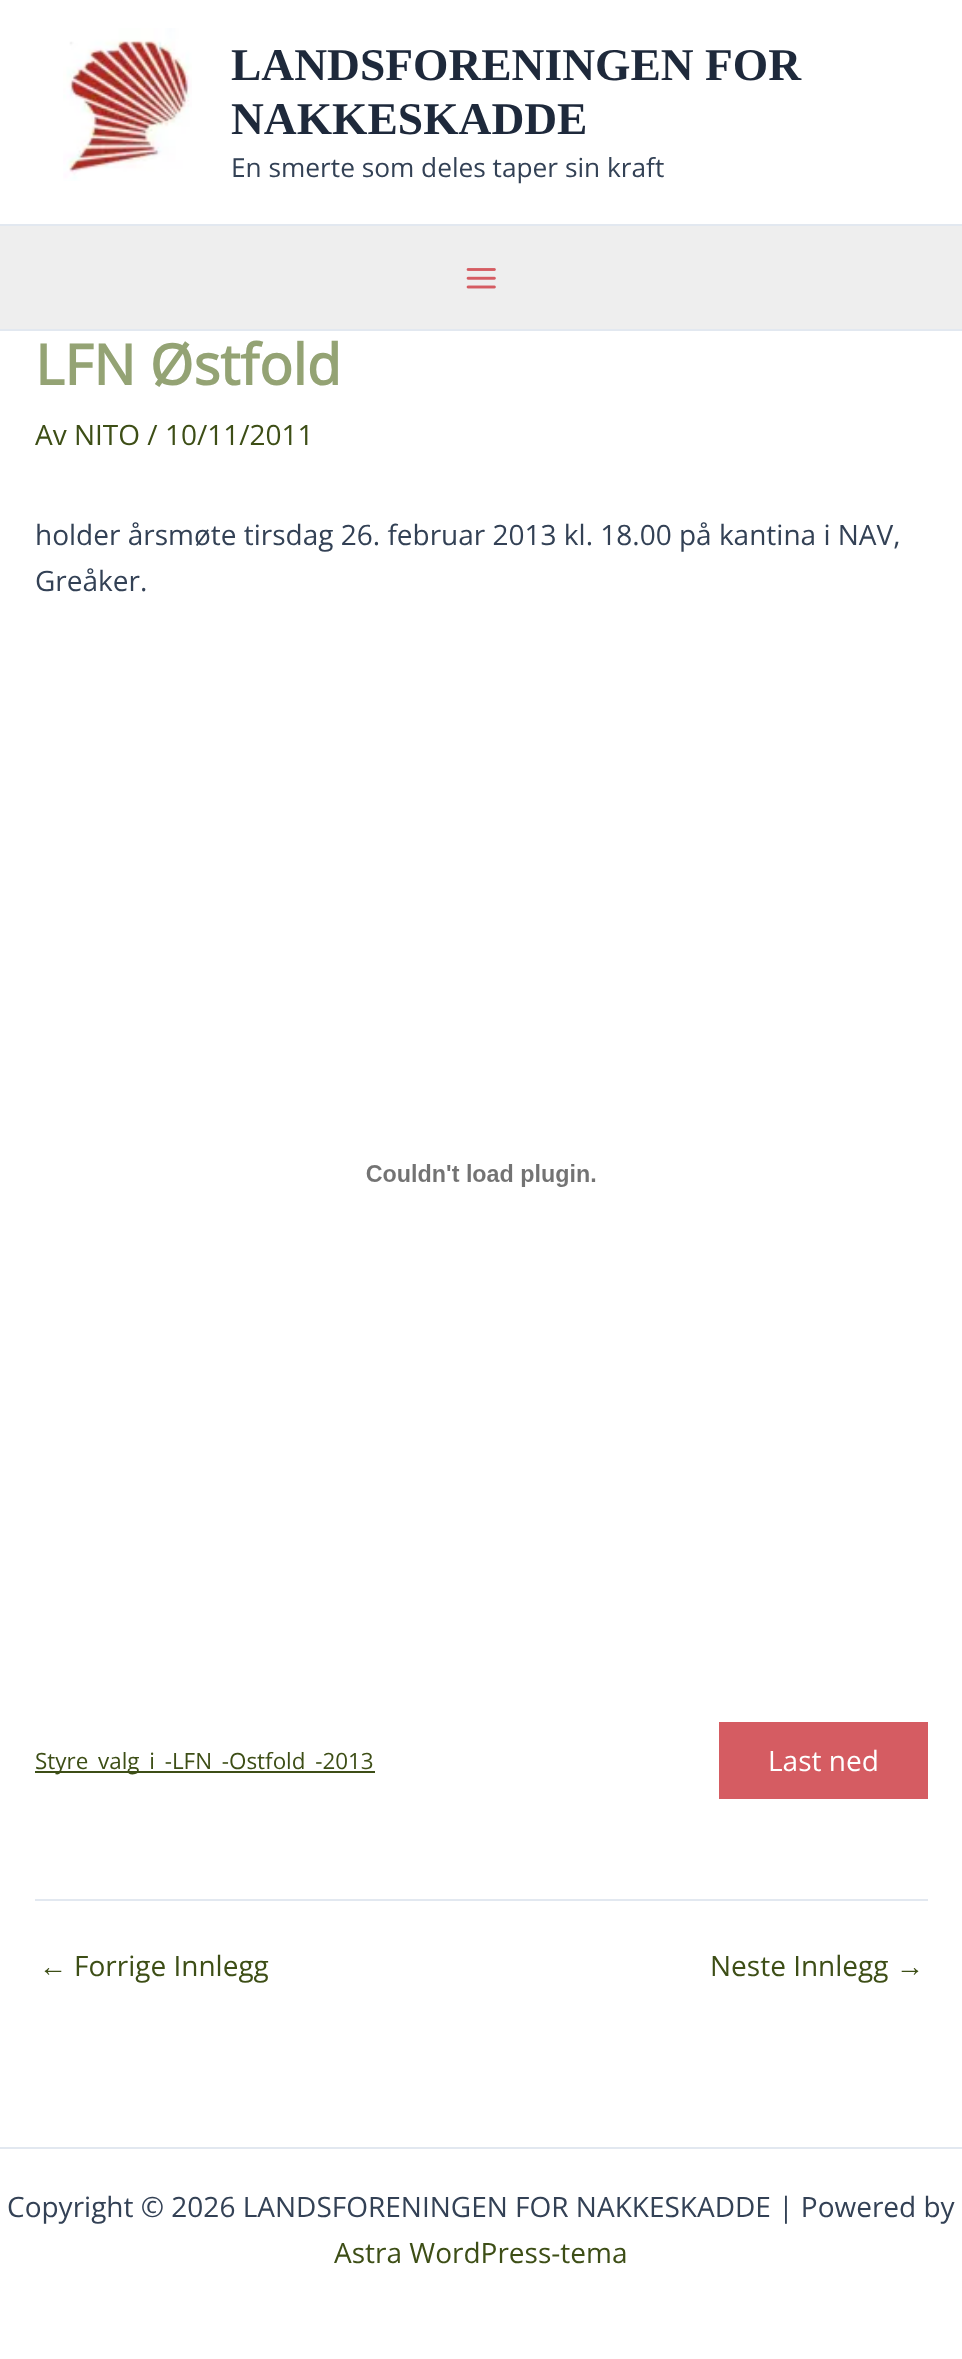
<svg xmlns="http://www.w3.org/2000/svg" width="962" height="2359">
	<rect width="100%" height="100%" fill="#FFFFFF" />
	<rect x="0" y="224" width="962" height="2" fill="#E2E8F0" />
	<image x="63" y="28" width="129" height="153" href="assets/img1.png" />
	<g font-family="Liberation Serif" font-size="45.5" font-weight="700" fill="#1E293B">
		<text x="231" y="80">LANDSFORENINGEN FOR</text>
		<text x="231" y="134">NAKKESKADDE</text>
	</g>
	<text x="231" y="177" font-family="Open Sans" font-size="26.25" fill="#334155">En smerte som deles taper sin kraft</text>
	<rect x="0" y="226" width="962" height="103" fill="#EEEEEE" />
	<rect x="0" y="329" width="962" height="2" fill="#E2E8F0" />
	<image x="466" y="268" width="30" height="21" href="assets/img2.png" />
	<text x="35" y="385" font-family="Open Sans" font-size="56" font-weight="700" fill="#94A374">LFN Østfold</text>
	<text x="35" y="445" font-family="Open Sans" font-size="28" fill="#3D4E16">Av NITO / 10/11/2011</text>
	<g font-family="Open Sans" font-size="28" fill="#334155">
		<text x="35" y="545">holder årsmøte tirsdag 26. februar 2013 kl. 18.00 på kantina i NAV,</text>
		<text x="35" y="591">Greåker.</text>
	</g>
	<image x="366" y="1164" width="230" height="23" href="assets/img3.png" />
	<rect x="35" y="1771" width="340" height="2" fill="#3D4E16" />
	<text x="35" y="1769" font-family="Open Sans" font-size="22.4" fill="#3D4E16">Styre_valg_i_-LFN_-Ostfold_-2013</text>
	<rect x="719" y="1722" width="209" height="77" fill="#D55C62" />
	<text x="768" y="1771" font-family="Open Sans" font-size="28" fill="#FFFFFF">Last ned</text>
	<rect x="35" y="1899" width="893" height="2" fill="#E2E8F0" />
	<text x="39" y="1976" font-family="Liberation Sans" font-size="28" fill="#3D4E16">←</text>
	<g font-family="Open Sans" font-size="28" fill="#3D4E16">
		<text x="74" y="1976">Forrige Innlegg</text>
		<text x="710" y="1976">Neste Innlegg</text>
	</g>
	<text x="896" y="1976" font-family="Liberation Sans" font-size="28" fill="#3D4E16">→</text>
	<rect x="0" y="2147" width="962" height="2" fill="#E2E8F0" />
	<text x="7" y="2217" font-family="Open Sans" font-size="28" fill="#334155">Copyright © 2026 LANDSFORENINGEN FOR NAKKESKADDE | Powered by</text>
	<text x="334" y="2263" font-family="Open Sans" font-size="28" fill="#3D4E16">Astra WordPress-tema</text>
</svg>
